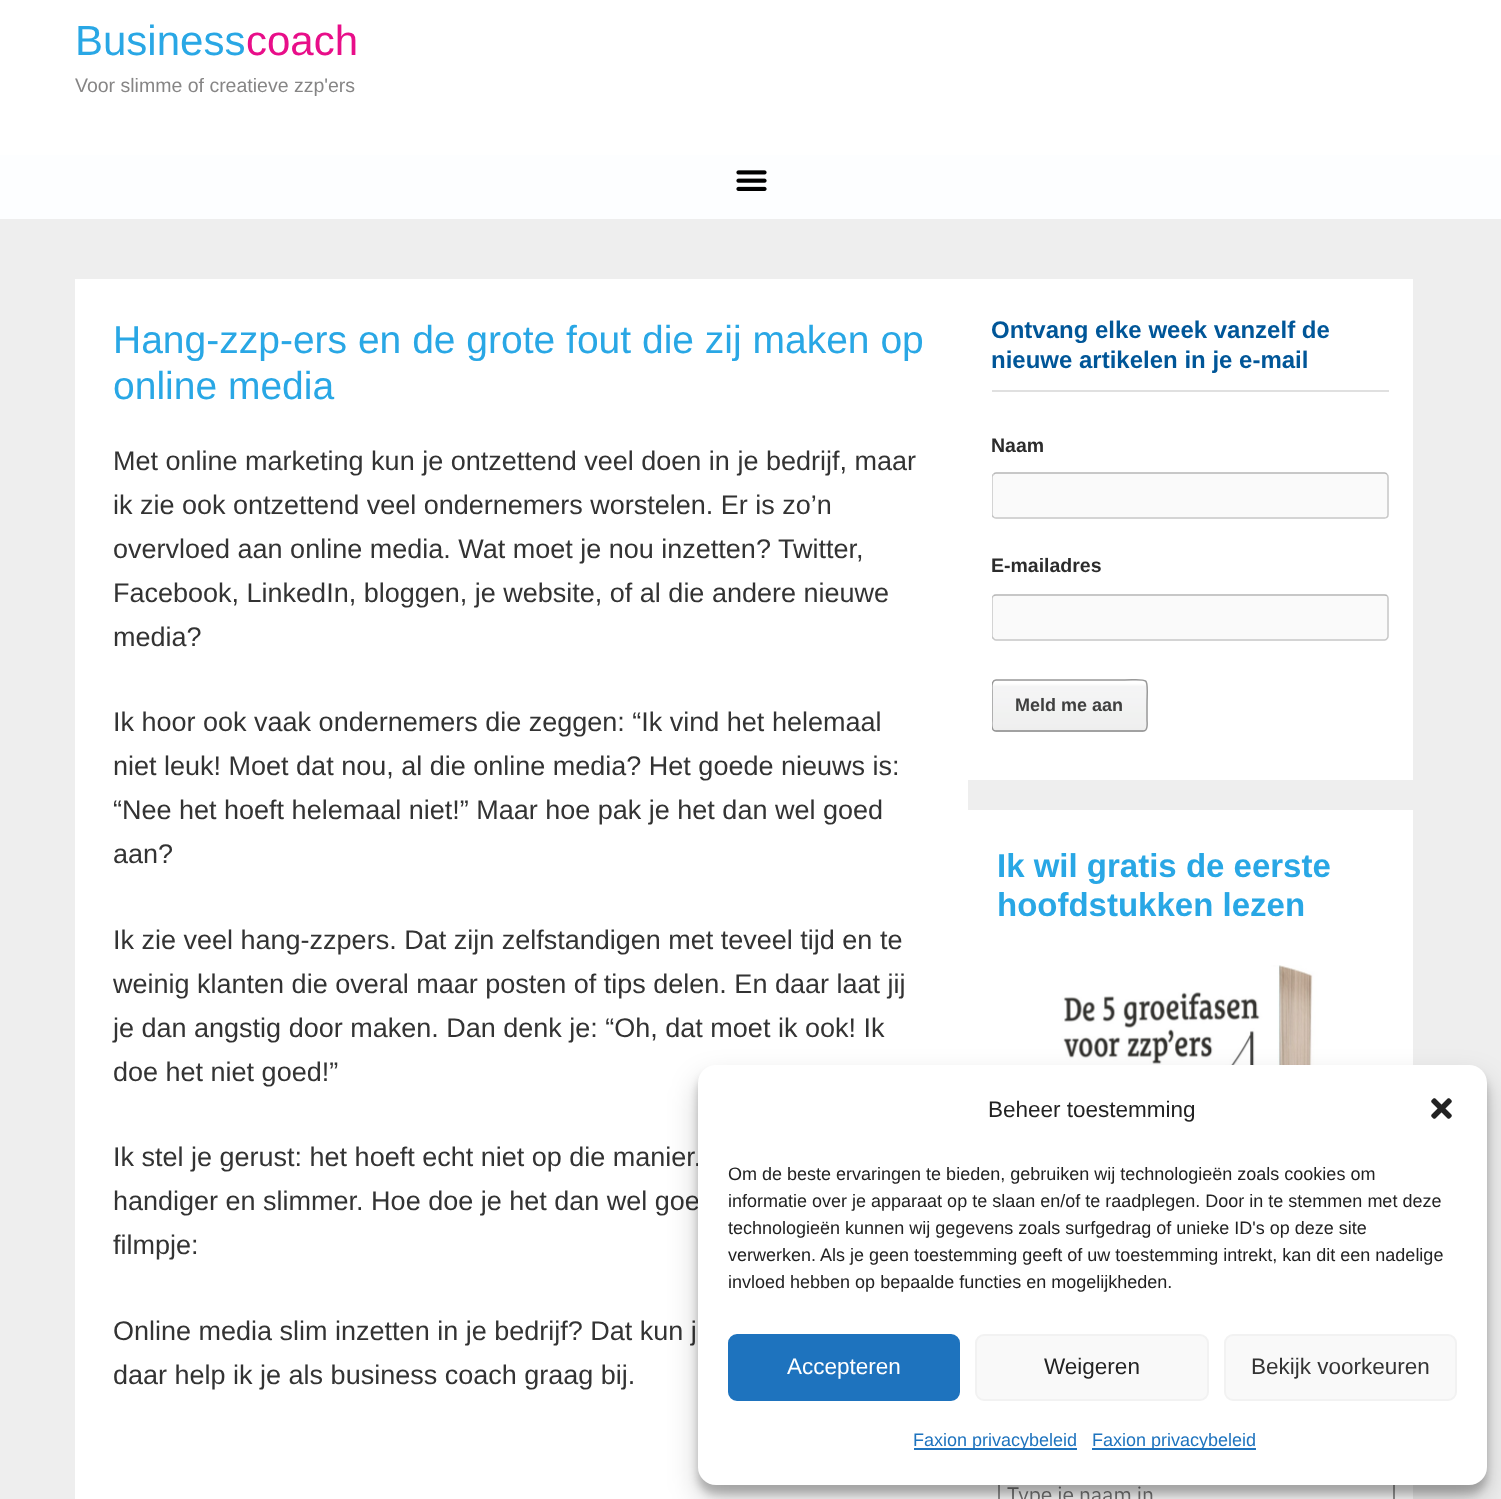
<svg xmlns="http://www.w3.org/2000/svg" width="1501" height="1499">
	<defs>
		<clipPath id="clip1"><rect x="992" y="423" width="397" height="96" /></clipPath>
		<clipPath id="clip2"><rect x="992" y="543" width="397" height="98" /></clipPath>
		<clipPath id="clip3"><rect x="992" y="665" width="397" height="67" /></clipPath>
	</defs>
	<rect width="100%" height="100%" fill="#EEEEEE" />
	<rect x="0" y="0" width="1501" height="155" fill="#FFFFFF" />
	<rect x="0" y="155" width="1501" height="64" fill="#FDFEFF" />
	<image x="736" y="170" width="31" height="21" href="assets/img1.png" />
	<text x="75" y="55" font-family="Liberation Sans" font-size="42" fill="#29A7E5">Business</text>
	<text x="246" y="55" font-family="Liberation Sans" font-size="42" fill="#E80E89">coach</text>
	<text x="75" y="92" font-family="Liberation Sans" font-size="19.5" fill="#868585">Voor slimme of creatieve zzp'ers</text>
	<rect x="75" y="279" width="893" height="1220" fill="#FFFFFF" />
	<g font-family="Liberation Sans" font-size="39" fill="#29A7E5">
		<text x="113" y="353">Hang-zzp-ers en de grote fout die zij maken op</text>
		<text x="113" y="399">online media</text>
	</g>
	<g font-family="Liberation Sans" font-size="27" fill="#333333">
		<text x="113" y="470">Met online marketing kun je ontzettend veel doen in je bedrijf, maar</text>
		<text x="113" y="514">ik zie ook ontzettend veel ondernemers worstelen. Er is zo’n</text>
		<text x="113" y="558">overvloed aan online media. Wat moet je nou inzetten? Twitter,</text>
		<text x="113" y="602">Facebook, LinkedIn, bloggen, je website, of al die andere nieuwe</text>
		<text x="113" y="646">media?</text>
		<text x="113" y="731">Ik hoor ook vaak ondernemers die zeggen: “Ik vind het helemaal</text>
		<text x="113" y="775">niet leuk! Moet dat nou, al die online media? Het goede nieuws is:</text>
		<text x="113" y="819">“Nee het hoeft helemaal niet!” Maar hoe pak je het dan wel goed</text>
		<text x="113" y="863">aan?</text>
		<text x="113" y="949">Ik zie veel hang-zzpers. Dat zijn zelfstandigen met teveel tijd en te</text>
		<text x="113" y="993">weinig klanten die overal maar posten of tips delen. En daar laat jij</text>
		<text x="113" y="1037">je dan angstig door maken. Dan denk je: “Oh, dat moet ik ook! Ik</text>
		<text x="113" y="1081">doe het niet goed!”</text>
		<text x="113" y="1166">Ik stel je gerust: het hoeft echt niet op die manier.</text>
		<text x="113" y="1210">handiger en slimmer. Hoe doe je het dan wel goe</text>
		<text x="113" y="1254">filmpje:</text>
		<text x="113" y="1340">Online media slim inzetten in je bedrijf? Dat kun j</text>
		<text x="113" y="1384">daar help ik je als business coach graag bij.</text>
	</g>
	<rect x="968" y="279" width="445" height="501" fill="#FFFFFF" />
	<rect x="992" y="390" width="397" height="2" fill="#E0E0E0" />
	<g font-family="Liberation Sans" font-size="24" font-weight="700" fill="#005698">
		<text x="991" y="338">Ontvang elke week vanzelf de</text>
		<text x="991" y="368">nieuwe artikelen in je e-mail</text>
	</g>
	<text x="991" y="452" font-family="Liberation Sans" font-size="19.5" font-weight="700" fill="#2C2C2C">Naam</text>
	<rect x="992" y="473" width="397" height="46" rx="5" fill="#FAFAFA" />
	<path d="M993.5 474.5C994 473.5 995 473 996 473H1384.5C1385.5 473 1386.5 473.5 1387 474.5" fill="none" stroke="#B6B6B6" stroke-width="1.5" />
	<g clip-path="url(#clip1)">
		<path d="M1387 474.5C1388 475 1388 476 1388 477V514.5C1388 515.5 1388 516.5 1387 517C1386.5 518 1385.5 518 1384.5 518H996C995 518 994 518 993.5 517C992.5 516.5 992 515.5 992 514.5V477C992 476 992.5 475 993.5 474.5" fill="none" stroke="#C7C7C7" stroke-width="1.5" />
	</g>
	<text x="991" y="572" font-family="Liberation Sans" font-size="19.5" font-weight="700" fill="#2C2C2C">E-mailadres</text>
	<rect x="992" y="594" width="397" height="47" rx="5" fill="#FAFAFA" />
	<path d="M993.5 596C994 595 995 595 996 595H1384.5C1385.5 595 1386.5 595 1387 596" fill="none" stroke="#B6B6B6" stroke-width="1.5" />
	<g clip-path="url(#clip2)">
		<path d="M1387 596C1388 596.5 1388 597.5 1388 598.5V636C1388 637 1388 638 1387 638.5C1386.5 639.5 1385.5 640 1384.5 640H996C995 640 994 639.5 993.5 638.5C992.5 638 992 637 992 636V598.5C992 597.5 992.5 596.5 993.5 596" fill="none" stroke="#C7C7C7" stroke-width="1.5" />
	</g>
	<rect x="992" y="680" width="156" height="52" rx="5" fill="#F7F7F7" />
	<image x="992" y="681" width="155" height="51" href="assets/img2.png" />
	<path d="M1145.5 730C1145 731 1144 731 1143 731H996C995 731 994 731 993.5 730" fill="none" stroke="#888888" stroke-width="1.5" />
	<g clip-path="url(#clip3)">
		<path d="M993.5 730C991 728 992 722 992 720V691C992 688.5 990.5 680.5 996 680H1118.5C1152.5 680 1147 674 1147 706V720C1147 722 1148 728 1145.5 730" fill="none" stroke="#999999" stroke-width="1.5" />
	</g>
	<text x="1015" y="711" font-family="Liberation Sans" font-size="18" font-weight="700" fill="#3F3F3F">Meld me aan</text>
	<rect x="968" y="810" width="445" height="689" fill="#FFFFFF" />
	<g font-family="Liberation Sans" font-size="33" font-weight="700" fill="#29A7E5">
		<text x="997" y="877">Ik wil gratis de eerste</text>
		<text x="997" y="916">hoofdstukken lezen</text>
	</g>
	<image x="1045" y="965" width="327" height="100" href="assets/img3.png" />
	<rect x="999" y="1470" width="395" height="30" fill="none" stroke="#979797" stroke-width="2" />
	<text x="1007" y="1502" font-family="IBM Plex Sans" font-size="21" fill="#757575">Type je naam in</text>
	<rect x="698" y="1074" width="789" height="420" rx="18" fill="#000000" fill-opacity="0.23" filter="blur(4.5px)" />
	<rect x="698" y="1080" width="789" height="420" rx="18" fill="#000000" fill-opacity="0.19" filter="blur(15px)" />
	<rect x="698" y="1065" width="789" height="420" rx="18" fill="#FFFFFF" />
	<text x="988" y="1117" font-family="Liberation Sans" font-size="22.5" fill="#222222">Beheer toestemming</text>
	<image x="1431" y="1098" width="21" height="21" href="assets/img4.png" />
	<g font-family="Liberation Sans" font-size="18" fill="#222222">
		<text x="728" y="1180">Om de beste ervaringen te bieden, gebruiken wij technologieën zoals cookies om</text>
		<text x="728" y="1207">informatie over je apparaat op te slaan en/of te raadplegen. Door in te stemmen met deze</text>
		<text x="728" y="1234">technologieën kunnen wij gegevens zoals surfgedrag of unieke ID's op deze site</text>
		<text x="728" y="1261">verwerken. Als je geen toestemming geeft of uw toestemming intrekt, kan dit een nadelige</text>
		<text x="728" y="1288">invloed hebben op bepaalde functies en mogelijkheden.</text>
	</g>
	<rect x="729" y="1335" width="230" height="65" rx="8" fill="#1E73BE" stroke="#1E73BE" stroke-width="2" />
	<text x="787" y="1374" font-family="Liberation Sans" font-size="22.5" fill="#FFFFFF">Accepteren</text>
	<rect x="976" y="1335" width="232" height="65" rx="8" fill="#F9F9F9" stroke="#F2F2F2" stroke-width="2" />
	<text x="1044" y="1374" font-family="Liberation Sans" font-size="22.5" fill="#222222">Weigeren</text>
	<rect x="1225" y="1335" width="231" height="65" rx="8" fill="#F9F9F9" stroke="#F2F2F2" stroke-width="2" />
	<text x="1251" y="1374" font-family="Liberation Sans" font-size="22.5" fill="#333333">Bekijk voorkeuren</text>
	<rect x="914" y="1448" width="163" height="2" fill="#1E73BE" />
	<text x="913" y="1446" font-family="Liberation Sans" font-size="18" fill="#1E73BE">Faxion privacybeleid</text>
	<rect x="1092" y="1448" width="164" height="2" fill="#1E73BE" />
	<text x="1092" y="1446" font-family="Liberation Sans" font-size="18" fill="#1E73BE">Faxion privacybeleid</text>
</svg>
